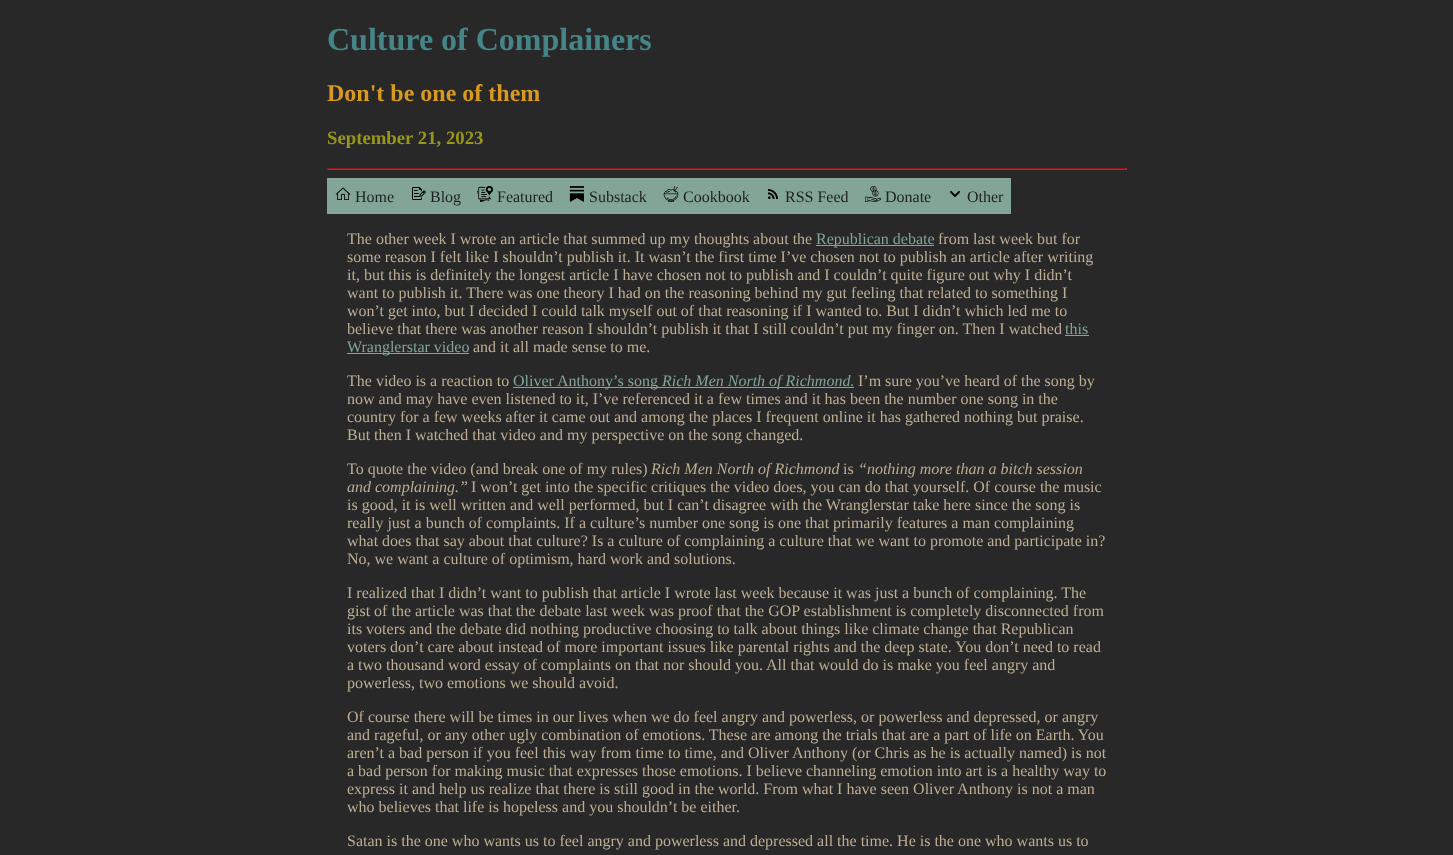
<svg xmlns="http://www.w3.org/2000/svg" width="1453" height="855">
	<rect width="100%" height="100%" fill="#282828" />
	<text x="327" y="50" font-family="Liberation Serif" font-size="32" font-weight="700" fill="#458588">Culture of Complainers</text>
	<text x="327" y="101" font-family="Liberation Serif" font-size="24" font-weight="700" fill="#D79921">Don't be one of them</text>
	<text x="327" y="144" font-family="Liberation Serif" font-size="18.75" font-weight="700" fill="#98971A">September 21, 2023</text>
	<rect x="327" y="168" width="800" height="1" fill="#881813" />
	<rect x="1126" y="168" width="1" height="2" fill="#CC241D" />
	<rect x="327" y="169" width="800" height="1" fill="#CC241D" />
	<rect x="327" y="168" width="1" height="2" fill="#881813" />
	<rect x="327" y="178" width="684" height="36" fill="#83A598" />
	<image x="335" y="187" width="16" height="13" href="assets/img1.png" />
	<text x="355" y="202" font-family="Liberation Serif" font-size="16" fill="#1D2021">Home</text>
	<image x="412" y="187" width="14" height="13" href="assets/img2.png" />
	<text x="430" y="202" font-family="Liberation Serif" font-size="16" fill="#1D2021">Blog</text>
	<image x="477" y="186" width="16" height="16" href="assets/img3.png" />
	<text x="497" y="202" font-family="Liberation Serif" font-size="16" fill="#1D2021">Featured</text>
	<image x="569" y="186" width="15" height="16" href="assets/img4.png" />
	<text x="589" y="202" font-family="Liberation Serif" font-size="16" fill="#1D2021">Substack</text>
	<image x="663" y="186" width="16" height="16" href="assets/img5.png" />
	<text x="683" y="202" font-family="Liberation Serif" font-size="16" fill="#1D2021">Cookbook</text>
	<image x="768" y="189" width="10" height="10" href="assets/img6.png" />
	<text x="785" y="202" font-family="Liberation Serif" font-size="16" fill="#1D2021">RSS Feed</text>
	<image x="865" y="186" width="16" height="16" href="assets/img7.png" />
	<text x="885" y="202" font-family="Liberation Serif" font-size="16" fill="#1D2021">Donate</text>
	<image x="950" y="191" width="10" height="6" href="assets/img8.png" />
	<text x="967" y="202" font-family="Liberation Serif" font-size="16" fill="#1D2021">Other</text>
	<text x="347" y="244" font-family="Liberation Serif" font-size="16" fill="#BDAE93">The other week I wrote an article that summed up my thoughts about the</text>
	<rect x="816" y="245" width="118" height="1" fill="#83A598" />
	<text x="816" y="244" font-family="Liberation Serif" font-size="16" fill="#83A598">Republican debate</text>
	<g font-family="Liberation Serif" font-size="16" fill="#BDAE93">
		<text x="938" y="244">from last week but for</text>
		<text x="347" y="262">some reason I felt like I shouldn’t publish it. It wasn’t the first time I’ve chosen not to publish an article after writing</text>
		<text x="347" y="280">it, but this is definitely the longest article I have chosen not to publish and I couldn’t quite figure out why I didn’t</text>
		<text x="347" y="298">want to publish it. There was one theory I had on the reasoning behind my gut feeling that related to something I</text>
		<text x="347" y="316">won’t get into, but I decided I could talk myself out of that reasoning if I wanted to. But I didn’t which led me to</text>
		<text x="347" y="334">believe that there was another reason I shouldn’t publish it that I still couldn’t put my finger on. Then I watched</text>
	</g>
	<text x="1065" y="334" font-family="Liberation Serif" font-size="16" fill="#83A598">this</text>
	<rect x="1065" y="335" width="24" height="1" fill="#83A598" />
	<rect x="347" y="353" width="122" height="1" fill="#83A598" />
	<text x="347" y="352" font-family="Liberation Serif" font-size="16" fill="#83A598">Wranglerstar video</text>
	<g font-family="Liberation Serif" font-size="16" fill="#BDAE93">
		<text x="473" y="352">and it all made sense to me.</text>
		<text x="347" y="386">The video is a reaction to</text>
	</g>
	<rect x="513" y="387" width="341" height="1" fill="#83A598" />
	<text x="513" y="386" font-family="Liberation Serif" font-size="16" fill="#83A598">Oliver Anthony’s song</text>
	<text x="662" y="386" font-family="Liberation Serif" font-size="16" font-style="italic" fill="#83A598">Rich Men North of Richmond</text>
	<text x="850" y="386" font-family="Liberation Serif" font-size="16" fill="#83A598">.</text>
	<g font-family="Liberation Serif" font-size="16" fill="#BDAE93">
		<text x="858" y="386">I’m sure you’ve heard of the song by</text>
		<text x="347" y="404">now and may have even listened to it, I’ve referenced it a few times and it has been the number one song in the</text>
		<text x="347" y="422">country for a few weeks after it came out and among the places I frequent online it has gathered nothing but praise.</text>
		<text x="347" y="440">But then I watched that video and my perspective on the song changed.</text>
		<text x="347" y="474">To quote the video (and break one of my rules)</text>
	</g>
	<text x="651" y="474" font-family="Liberation Serif" font-size="16" font-style="italic" fill="#BDAE93">Rich Men North of Richmond</text>
	<text x="843" y="474" font-family="Liberation Serif" font-size="16" fill="#BDAE93">is</text>
	<g font-family="Liberation Serif" font-size="16" font-style="italic" fill="#BDAE93">
		<text x="858" y="474">“nothing more than a bitch session</text>
		<text x="347" y="492">and complaining.”</text>
	</g>
	<g font-family="Liberation Serif" font-size="16" fill="#BDAE93">
		<text x="471" y="492">I won’t get into the specific critiques the video does, you can do that yourself. Of course the music</text>
		<text x="347" y="510">is good, it is well written and well performed, but I can’t disagree with the Wranglerstar take here since the song is</text>
		<text x="347" y="528">really just a bunch of complaints. If a culture’s number one song is one that primarily features a man complaining</text>
		<text x="347" y="546">what does that say about that culture? Is a culture of complaining a culture that we want to promote and participate in?</text>
		<text x="347" y="564">No, we want a culture of optimism, hard work and solutions.</text>
		<text x="347" y="598">I realized that I didn’t want to publish that article I wrote last week because it was just a bunch of complaining. The</text>
		<text x="347" y="616">gist of the article was that the debate last week was proof that the GOP establishment is completely disconnected from</text>
		<text x="347" y="634">its voters and the debate did nothing productive choosing to talk about things like climate change that Republican</text>
		<text x="347" y="652">voters don’t care about instead of more important issues like parental rights and the deep state. You don’t need to read</text>
		<text x="347" y="670">a two thousand word essay of complaints on that nor should you. All that would do is make you feel angry and</text>
		<text x="347" y="688">powerless, two emotions we should avoid.</text>
		<text x="347" y="722">Of course there will be times in our lives when we do feel angry and powerless, or powerless and depressed, or angry</text>
		<text x="347" y="740">and rageful, or any other ugly combination of emotions. These are among the trials that are a part of life on Earth. You</text>
		<text x="347" y="758">aren’t a bad person if you feel this way from time to time, and Oliver Anthony (or Chris as he is actually named) is not</text>
		<text x="347" y="776">a bad person for making music that expresses those emotions. I believe channeling emotion into art is a healthy way to</text>
		<text x="347" y="794">express it and help us realize that there is still good in the world. From what I have seen Oliver Anthony is not a man</text>
		<text x="347" y="812">who believes that life is hopeless and you shouldn’t be either.</text>
		<text x="347" y="846">Satan is the one who wants us to feel angry and powerless and depressed all the time. He is the one who wants us to</text>
	</g>
</svg>
